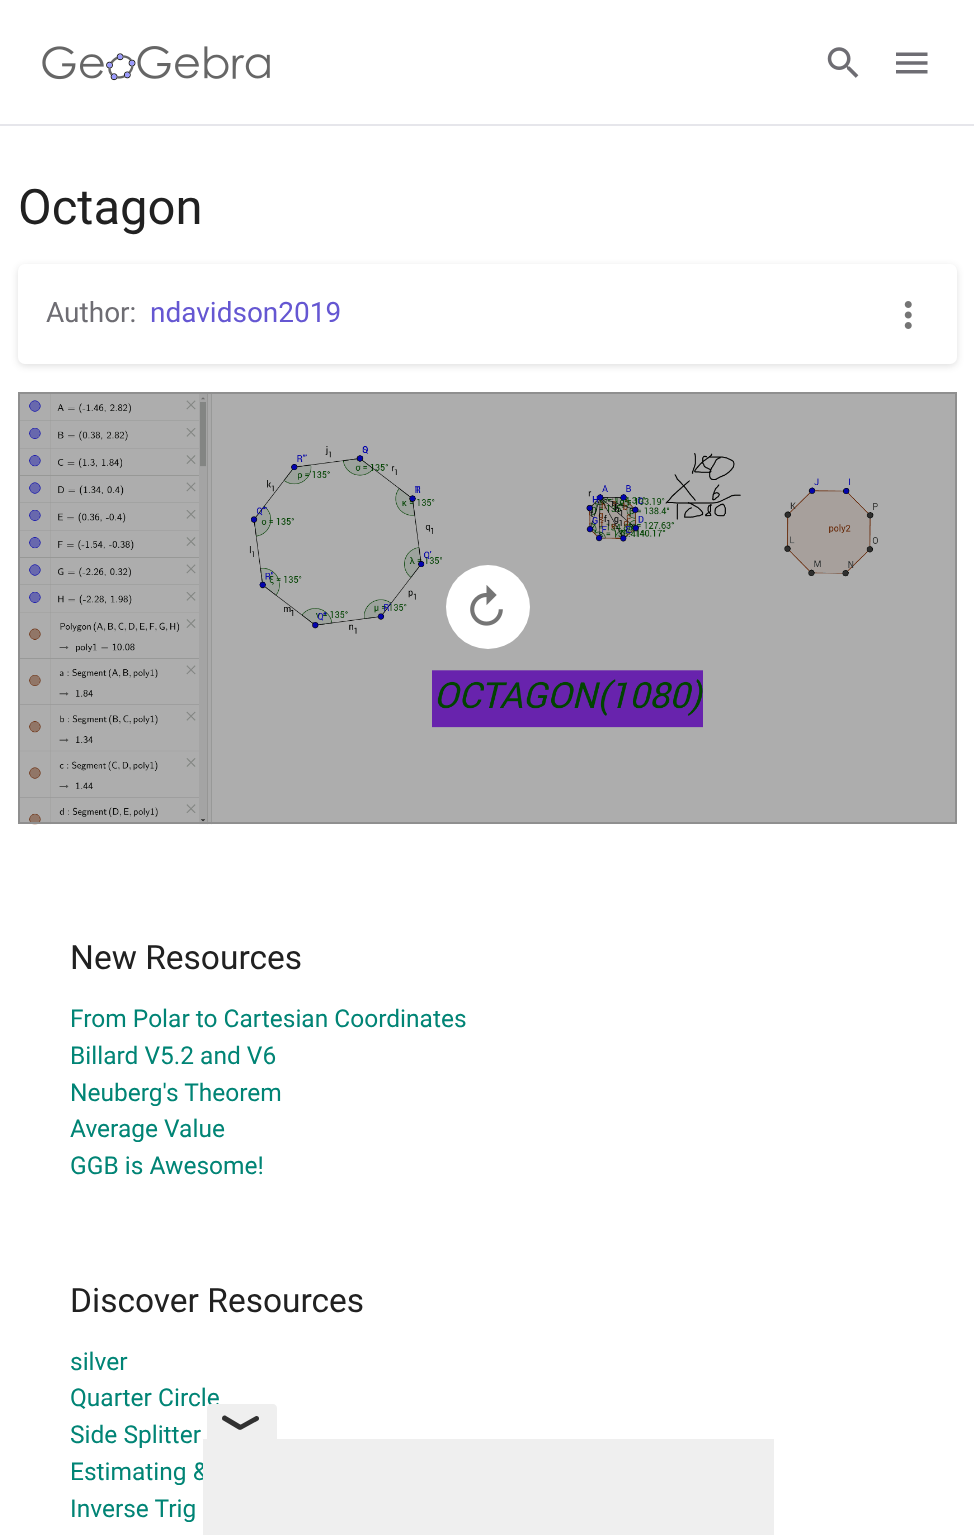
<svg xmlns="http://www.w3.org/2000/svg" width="974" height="1535">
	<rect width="100%" height="100%" fill="#FFFFFF" />
	<rect x="878" y="394" width="77" height="428" fill="#ADADAD" />
	<rect x="0" y="124" width="974" height="2" fill="#E6E6EB" />
	<image x="42" y="46" width="228" height="35" href="assets/img1.png" />
	<image x="827" y="47" width="32" height="31" href="assets/img2.png" />
	<image x="896" y="52" width="32" height="22" href="assets/img3.png" />
	<text x="18" y="224" font-family="Roboto" font-size="49" fill="#212121">Octagon</text>
	<rect x="18" y="266" width="939" height="100" rx="7" fill="#1C1C1F" fill-opacity="0.14" filter="blur(3.5px)" />
	<rect x="18" y="264" width="939" height="100" rx="7" fill="#FFFFFF" />
	<text x="46" y="322" font-family="Roboto" font-size="28" fill="#6E6D73">Author:</text>
	<text x="150" y="322" font-family="Roboto" font-size="28" fill="#6557D2">ndavidson2019</text>
	<image x="904" y="301" width="8" height="28" href="assets/img4.png" />
	<image x="19" y="394" width="859" height="431" href="assets/img5.png" />
	<rect x="19" y="393" width="937" height="430" fill="none" stroke="#8F8F8F" stroke-width="2" />
	<circle cx="488" cy="607" r="42" fill="#FFFFFF" />
	<image x="470" y="585" width="33" height="41" href="assets/img6.png" />
	<text x="70" y="969" font-family="Roboto" font-size="33.5" fill="#212121">New Resources</text>
	<g font-family="Roboto" font-size="24.5" fill="#008475">
		<text x="70" y="1027">From Polar to Cartesian Coordinates</text>
		<text x="70" y="1064">Billard V5.2 and V6</text>
		<text x="70" y="1101">Neuberg's Theorem</text>
		<text x="70" y="1137">Average Value</text>
		<text x="70" y="1174">GGB is Awesome!</text>
	</g>
	<text x="70" y="1312" font-family="Roboto" font-size="33.5" fill="#212121">Discover Resources</text>
	<g font-family="Roboto" font-size="24.5" fill="#008475">
		<text x="70" y="1370">silver</text>
		<text x="70" y="1406">Quarter Circle</text>
		<text x="70" y="1443">Side Splitter</text>
		<text x="70" y="1480">Estimating &amp;</text>
		<text x="70" y="1517">Inverse Trig</text>
	</g>
	<path d="M211 1404H273C275 1404 277 1406 277 1408V1439H207V1408C207 1406 209 1404 211 1404Z" fill="#EFEFEF" />
	<path d="M226 1416L242 1425.5C243.5 1428 241 1430.5 238.5 1429.5L222.5 1420C221 1417.5 223.5 1414.5 226 1416Z" fill="#313131" />
	<path d="M240 1425L256 1416C259 1415.5 260 1419 258 1420.5L241.5 1429.5C239 1430 237.5 1426 240 1425Z" fill="#313131" />
	<rect x="203" y="1439" width="571" height="96" fill="#EFEFEF" />
</svg>
